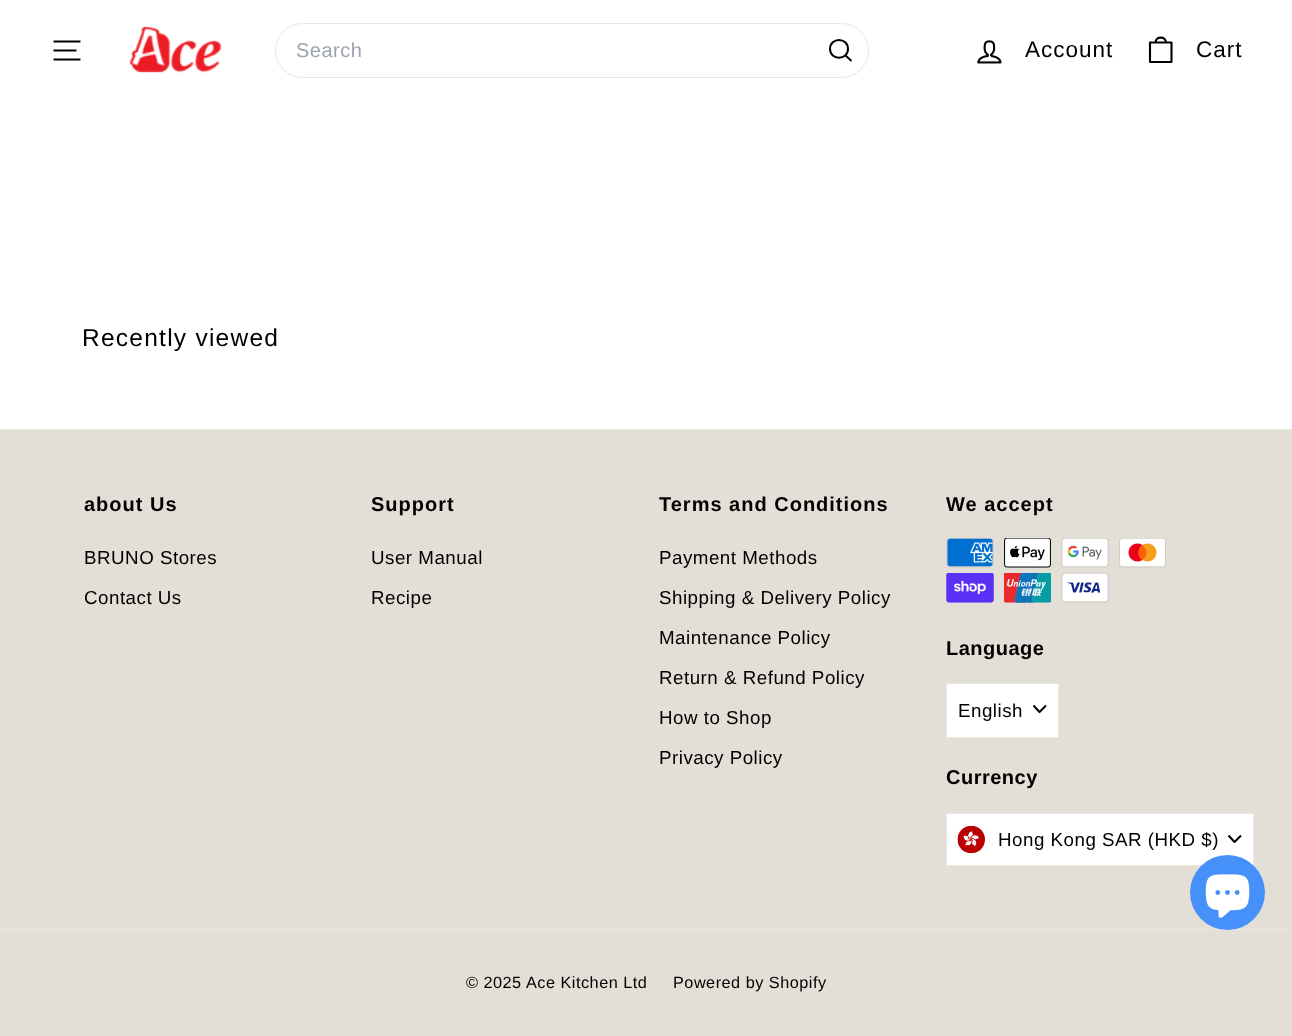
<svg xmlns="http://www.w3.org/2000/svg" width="1292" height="1036">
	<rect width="100%" height="100%" fill="#FFFFFF" />
	<path d="M53.5 41.5H80.5M53.5 50.5H76.5M53.5 59.5H80.5" fill="none" stroke="#000000" stroke-width="2.1" stroke-linejoin="round" />
	<image x="129" y="26" width="93" height="47" href="assets/img1.png" />
	<rect x="275.5" y="23.5" width="593" height="54" rx="27" fill="none" stroke="#E8E8E1" />
	<text x="296" y="57" font-family="Liberation Sans" font-size="20" letter-spacing="0.5" fill="#9CA3AF">Search</text>
	<path d="M848 49C848 60.5 830 60.5 830 49C830 37 848 37 848 49M851.5 61L845.5 55.5" fill="none" stroke="#000000" stroke-width="2" stroke-linejoin="round" />
	<image x="977" y="40" width="25" height="24" href="assets/img2.png" />
	<text x="1025" y="57" font-family="Liberation Sans" font-size="22.5" letter-spacing="1" fill="#000000">Account</text>
	<path d="M1155.5 42.5C1155.5 36 1166 36 1166 42.5M1150 42.5H1171.5V62H1150Z" fill="none" stroke="#000000" stroke-width="2.1" stroke-linejoin="round" />
	<text x="1196" y="57" font-family="Liberation Sans" font-size="22.5" letter-spacing="1" fill="#000000">Cart</text>
	<text x="82" y="346" font-family="Liberation Sans" font-size="24.5" letter-spacing="1.25" fill="#000000">Recently viewed</text>
	<rect x="0" y="430" width="1292" height="606" fill="#E3DFD7" />
	<rect x="0" y="429" width="1292" height="1" fill="#E8E8E1" />
	<text x="84" y="511" font-family="Liberation Sans" font-size="20" font-weight="700" letter-spacing="1" fill="#000000">about Us</text>
	<g font-family="Liberation Sans" font-size="18.75" letter-spacing="0.5" fill="#000000">
		<text x="84" y="564">BRUNO Stores</text>
		<text x="84" y="604">Contact Us</text>
	</g>
	<text x="371" y="511" font-family="Liberation Sans" font-size="20" font-weight="700" letter-spacing="1" fill="#000000">Support</text>
	<g font-family="Liberation Sans" font-size="18.75" letter-spacing="0.5" fill="#000000">
		<text x="371" y="564">User Manual</text>
		<text x="371" y="604">Recipe</text>
	</g>
	<text x="659" y="511" font-family="Liberation Sans" font-size="20" font-weight="700" letter-spacing="1" fill="#000000">Terms and Conditions</text>
	<g font-family="Liberation Sans" font-size="18.75" letter-spacing="0.5" fill="#000000">
		<text x="659" y="564">Payment Methods</text>
		<text x="659" y="604">Shipping &amp; Delivery Policy</text>
		<text x="659" y="644">Maintenance Policy</text>
		<text x="659" y="684">Return &amp; Refund Policy</text>
		<text x="659" y="724">How to Shop</text>
		<text x="659" y="764">Privacy Policy</text>
	</g>
	<text x="946" y="511" font-family="Liberation Sans" font-size="20" font-weight="700" letter-spacing="1" fill="#000000">We accept</text>
	<image x="946" y="538" width="48" height="30" href="assets/img3.png" />
	<image x="1004" y="538" width="47" height="30" href="assets/img4.png" />
	<image x="1061" y="538" width="48" height="30" href="assets/img5.png" />
	<image x="1119" y="538" width="47" height="30" href="assets/img6.png" />
	<image x="946" y="573" width="48" height="30" href="assets/img7.png" />
	<image x="1004" y="573" width="47" height="30" href="assets/img8.png" />
	<image x="1061" y="573" width="48" height="30" href="assets/img9.png" />
	<text x="946" y="655" font-family="Liberation Sans" font-size="20" font-weight="700" letter-spacing="0.5" fill="#000000">Language</text>
	<rect x="946.5" y="683.5" width="112" height="54" fill="#FFFFFF" stroke="#E8E8E1" />
	<text x="958" y="717" font-family="Liberation Sans" font-size="18.75" letter-spacing="0.5" fill="#000000">English</text>
	<path d="M1033.5 705.5L1039.5 712L1046 705.5" fill="none" stroke="#000000" stroke-width="2" stroke-linejoin="round" />
	<text x="946" y="784" font-family="Liberation Sans" font-size="20" font-weight="700" letter-spacing="0.5" fill="#000000">Currency</text>
	<rect x="946.5" y="813.5" width="307" height="52" fill="#FFFFFF" stroke="#E8E8E1" />
	<image x="957" y="825" width="28" height="29" href="assets/img10.png" />
	<text x="998" y="846" font-family="Liberation Sans" font-size="18.75" letter-spacing="0.5" fill="#000000">Hong Kong SAR (HKD $)</text>
	<path d="M1228.5 835.5L1234.5 842L1241 835.5" fill="none" stroke="#000000" stroke-width="2" stroke-linejoin="round" />
	<rect x="0" y="929" width="1292" height="1" fill="#E8E8E1" />
	<g font-family="Liberation Sans" font-size="16.25" letter-spacing="0.5" fill="#000000">
		<text x="466" y="988">© 2025</text>
		<text x="526" y="988">Ace Kitchen Ltd</text>
		<text x="673" y="988">Powered by Shopify</text>
	</g>
	<circle cx="1227.5" cy="892.5" r="37.5" fill="#4691F9" />
	<image x="1205" y="874" width="45" height="44" href="assets/img11.png" />
</svg>
